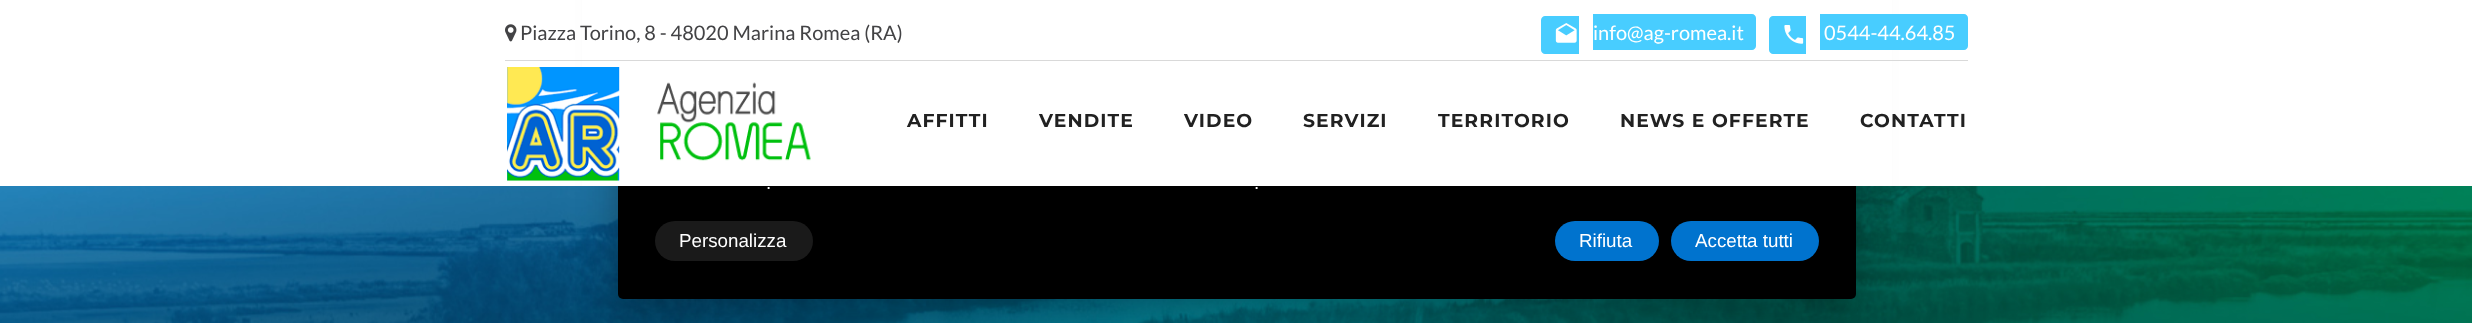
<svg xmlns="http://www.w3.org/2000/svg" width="2472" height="323">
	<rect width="100%" height="100%" fill="#FFFFFF" />
	<image x="0" y="186" width="2472" height="137" href="assets/img5.png" />
	<rect x="618" y="-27" width="1238" height="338" rx="5" fill="#000000" fill-opacity="0.33" filter="blur(19px)" />
	<rect x="618" y="-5" width="1238" height="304" rx="5" fill="#000000" />
	<rect x="582" y="0" width="1310" height="186" fill="#FFFFFF" />
	<rect x="505" y="60" width="1463" height="1" fill="#D9D9D9" />
	<image x="505" y="24" width="12" height="18" href="assets/img1.png" />
	<text x="520" y="40" font-family="Lato" font-size="20" fill="#434345">Piazza Torino, 8 - 48020 Marina Romea (RA)</text>
	<path d="M1545 16H1579V54H1545C1543 54 1541 52 1541 50V20C1541 18 1543 16 1545 16Z" fill="#48CDFF" />
	<path d="M1593 14H1752C1754 14 1756 16 1756 18V46C1756 48 1754 50 1752 50H1593Z" fill="#48CDFF" />
	<image x="1555" y="23" width="22" height="20" href="assets/img2.png" />
	<text x="1593" y="40" font-family="Lato" font-size="20" fill="#FFFFFF">info@ag-romea.it</text>
	<path d="M1773 16H1806V54H1773C1771 54 1769 52 1769 50V20C1769 18 1771 16 1773 16Z" fill="#48CDFF" />
	<path d="M1820 14H1964C1966 14 1968 16 1968 18V46C1968 48 1966 50 1964 50H1820Z" fill="#48CDFF" />
	<image x="1784" y="25" width="20" height="19" href="assets/img3.png" />
	<text x="1824" y="40" font-family="Lato" font-size="20" fill="#FFFFFF">0544-44.64.85</text>
	<image x="507" y="67" width="304" height="114" href="assets/img4.png" />
	<g font-family="Montserrat" font-size="18.75" font-weight="700" letter-spacing="1.1" fill="#212121">
		<text x="907" y="127">AFFITTI</text>
		<text x="1039" y="127">VENDITE</text>
		<text x="1184" y="127">VIDEO</text>
		<text x="1303" y="127">SERVIZI</text>
		<text x="1438" y="127">TERRITORIO</text>
		<text x="1620" y="127">NEWS E OFFERTE</text>
		<text x="1860" y="127">CONTATTI</text>
	</g>
	<g font-family="Liberation Sans" font-size="18.75" fill="#FFFFFF">
		<text x="766" y="189">.</text>
		<text x="1254" y="189">.</text>
	</g>
	<rect x="655" y="221" width="158" height="40" rx="20" fill="#1A1A1A" />
	<text x="679" y="247" font-family="Liberation Sans" font-size="18.75" fill="#FFFFFF">Personalizza</text>
	<rect x="1555" y="221" width="104" height="40" rx="20" fill="#0073CE" />
	<text x="1579" y="247" font-family="Liberation Sans" font-size="18.75" fill="#FFFFFF">Rifiuta</text>
	<rect x="1671" y="221" width="148" height="40" rx="20" fill="#0073CE" />
	<text x="1695" y="247" font-family="Liberation Sans" font-size="18.75" fill="#FFFFFF">Accetta tutti</text>
</svg>
